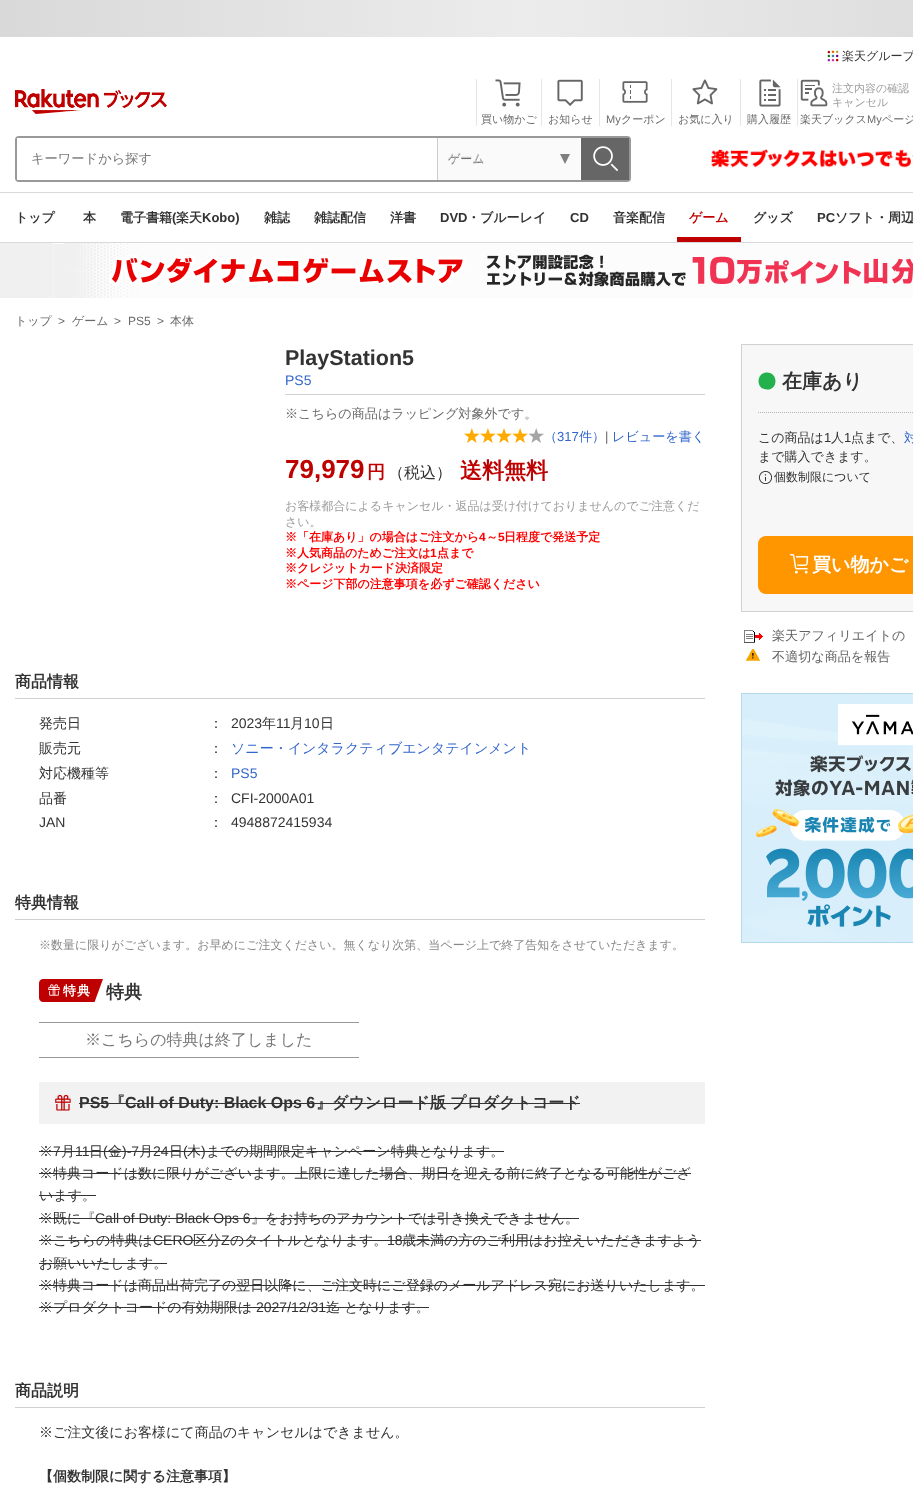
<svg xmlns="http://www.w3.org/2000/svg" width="913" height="1486">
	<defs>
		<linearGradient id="g1" gradientUnits="userSpaceOnUse" x1="0" y1="19" x2="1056" y2="18"><stop offset="0" stop-color="#D9D9D9" /><stop offset="0.5" stop-color="#ECECEC" /><stop offset="1" stop-color="#D9D9D9" /></linearGradient>
		<clipPath id="clip1"><rect x="92" y="979" width="11" height="23" /></clipPath>
	</defs>
	<rect width="100%" height="100%" fill="#FFFFFF" />
	<rect x="0" y="0" width="913" height="37" fill="url(#g1)" />
	<image x="827" y="50" width="12" height="12" href="assets/img1.png" />
	<text x="842" y="60" font-family="WenQuanYi Zen Hei" font-size="12" font-weight="500" fill="#333333">楽天グループ</text>
	<rect x="0" y="242" width="913" height="1" fill="#D9D9D9" />
	<image x="15" y="89" width="152" height="25" href="assets/img2.png" />
	<rect x="476" y="79" width="1" height="47" fill="#E6E6E6" />
	<image x="495" y="79" width="26" height="28" href="assets/img3.png" />
	<text x="481" y="123" font-family="WenQuanYi Zen Hei" font-size="11" font-weight="500" fill="#696969">買い物かご</text>
	<rect x="541" y="79" width="1" height="47" fill="#E6E6E6" />
	<image x="557" y="79" width="26" height="27" href="assets/img4.png" />
	<text x="548" y="123" font-family="WenQuanYi Zen Hei" font-size="11" font-weight="500" fill="#696969">お知らせ</text>
	<rect x="599" y="79" width="1" height="47" fill="#E6E6E6" />
	<image x="622" y="81" width="26" height="22" href="assets/img5.png" />
	<text x="606" y="123" font-family="Liberation Sans" font-size="11" fill="#696969">My</text>
	<text x="621" y="123" font-family="WenQuanYi Zen Hei" font-size="11" font-weight="500" fill="#696969">クーポン</text>
	<rect x="671" y="79" width="1" height="47" fill="#E6E6E6" />
	<image x="692" y="79" width="26" height="26" href="assets/img6.png" />
	<text x="678" y="123" font-family="WenQuanYi Zen Hei" font-size="11" font-weight="500" fill="#696969">お気に入り</text>
	<rect x="740" y="79" width="1" height="47" fill="#E6E6E6" />
	<image x="759" y="79" width="22" height="28" href="assets/img7.png" />
	<text x="747" y="123" font-family="WenQuanYi Zen Hei" font-size="11" font-weight="500" fill="#696969">購入履歴</text>
	<rect x="797" y="79" width="1" height="47" fill="#E6E6E6" />
	<image x="800" y="79" width="28" height="28" href="assets/img8.png" />
	<g font-family="WenQuanYi Zen Hei" font-size="11" font-weight="500" fill="#9C9C9C">
		<text x="832" y="92">注文内容の確認</text>
		<text x="832" y="106">キャンセル</text>
	</g>
	<text x="800" y="123" font-family="WenQuanYi Zen Hei" font-size="11" font-weight="500" fill="#696969">楽天ブックス</text>
	<text x="867" y="123" font-family="Liberation Sans" font-size="11" fill="#696969">My</text>
	<text x="882" y="123" font-family="WenQuanYi Zen Hei" font-size="11" font-weight="500" fill="#696969">ページ</text>
	<rect x="16" y="137" width="614" height="44" rx="3" fill="none" stroke="#999999" stroke-width="2" />
	<rect x="17" y="138" width="2" height="42" fill="#FFFFFF" />
	<text x="31" y="163" font-family="WenQuanYi Zen Hei" font-size="13.25" font-weight="500" fill="#777777">キーワードから探す</text>
	<rect x="438" y="138" width="142" height="42" fill="#FAFAFA" />
	<text x="448" y="163" font-family="WenQuanYi Zen Hei" font-size="12" font-weight="500" fill="#696969">ゲーム</text>
	<text x="448" y="162" font-family="WenQuanYi Zen Hei" font-size="12" font-weight="500" fill="#C9C9C9">ゲーム</text>
	<rect x="581" y="138" width="48" height="42" fill="#666666" />
	<image x="593" y="146" width="26" height="26" href="assets/img9.png" />
	<rect x="437" y="138" width="1" height="42" fill="#CCCCCC" />
	<path d="M560 154H570L565 164Z" fill="#7F7F7F" />
	<image x="711" y="149" width="202" height="19" href="assets/img10.png" />
	<rect x="0" y="192" width="913" height="1" fill="#D9D9D9" />
	<g font-family="WenQuanYi Zen Hei" font-size="13" font-weight="700" fill="#333333">
		<text x="15" y="222">トップ</text>
		<text x="83" y="222">本</text>
		<text x="120" y="222">電子書籍</text>
	</g>
	<text x="172" y="222" font-family="Liberation Sans" font-size="13" font-weight="700" fill="#333333">(</text>
	<text x="176" y="222" font-family="WenQuanYi Zen Hei" font-size="13" font-weight="700" fill="#333333">楽天</text>
	<text x="202" y="222" font-family="Liberation Sans" font-size="13" font-weight="700" fill="#333333">Kobo)</text>
	<g font-family="WenQuanYi Zen Hei" font-size="13" font-weight="700" fill="#333333">
		<text x="264" y="222">雑誌</text>
		<text x="314" y="222">雑誌配信</text>
		<text x="390" y="222">洋書</text>
	</g>
	<text x="440" y="222" font-family="Liberation Sans" font-size="13" font-weight="700" fill="#333333">DVD</text>
	<text x="467" y="222" font-family="WenQuanYi Zen Hei" font-size="13" font-weight="700" fill="#333333">・ブルーレイ</text>
	<text x="570" y="222" font-family="Liberation Sans" font-size="13" font-weight="700" fill="#333333">CD</text>
	<text x="613" y="222" font-family="WenQuanYi Zen Hei" font-size="13" font-weight="700" fill="#333333">音楽配信</text>
	<text x="689" y="222" font-family="WenQuanYi Zen Hei" font-size="13" font-weight="700" fill="#BF0000">ゲーム</text>
	<rect x="677" y="237" width="64" height="5" fill="#BF0000" />
	<text x="753" y="222" font-family="WenQuanYi Zen Hei" font-size="13" font-weight="700" fill="#333333">グッズ</text>
	<text x="817" y="222" font-family="Liberation Sans" font-size="13" font-weight="700" fill="#333333">PC</text>
	<text x="835" y="222" font-family="WenQuanYi Zen Hei" font-size="13" font-weight="700" fill="#333333">ソフト・周辺</text>
	<rect x="0" y="243" width="53" height="55" fill="#F0F0F0" />
	<image x="53" y="243" width="860" height="55" href="assets/img11.png" />
	<text x="15" y="325" font-family="WenQuanYi Zen Hei" font-size="12" font-weight="500" fill="#696969">トップ</text>
	<text x="58" y="325" font-family="Liberation Sans" font-size="12" fill="#696969">&gt;</text>
	<text x="72" y="325" font-family="WenQuanYi Zen Hei" font-size="12" font-weight="500" fill="#696969">ゲーム</text>
	<g font-family="Liberation Sans" font-size="12" fill="#696969">
		<text x="114" y="325">&gt;</text>
		<text x="128" y="325">PS5</text>
		<text x="157" y="325">&gt;</text>
	</g>
	<text x="170" y="325" font-family="WenQuanYi Zen Hei" font-size="12" font-weight="500" fill="#696969">本体</text>
	<rect x="285" y="394" width="420" height="1" fill="#D1D1D1" />
	<text x="285" y="365" font-family="Liberation Sans" font-size="21.5" font-weight="700" fill="#333333">PlayStation5</text>
	<text x="285" y="385" font-family="Liberation Sans" font-size="14" fill="#3366CC">PS5</text>
	<text x="285" y="418" font-family="WenQuanYi Zen Hei" font-size="13.1" font-weight="500" fill="#696969">※こちらの商品はラッピング対象外です。</text>
	<image x="464" y="428" width="80" height="15" href="assets/img12.png" />
	<text x="544" y="441" font-family="WenQuanYi Zen Hei" font-size="13.1" font-weight="500" fill="#3366CC">（</text>
	<text x="557" y="441" font-family="Liberation Sans" font-size="13.1" fill="#3366CC">317</text>
	<text x="579" y="441" font-family="WenQuanYi Zen Hei" font-size="13.1" font-weight="500" fill="#3366CC">件）</text>
	<text x="605" y="441" font-family="Liberation Sans" font-size="13.1" fill="#696969">|</text>
	<text x="612" y="441" font-family="WenQuanYi Zen Hei" font-size="13.1" font-weight="500" fill="#3366CC">レビューを書く</text>
	<text x="285" y="478" font-family="Liberation Sans" font-size="26" font-weight="700" fill="#BF0000">79,979</text>
	<text x="367" y="478" font-family="WenQuanYi Zen Hei" font-size="18" font-weight="700" fill="#BF0000">円</text>
	<text x="388" y="478" font-family="WenQuanYi Zen Hei" font-size="16" font-weight="500" fill="#333333">（税込）</text>
	<text x="460" y="478" font-family="WenQuanYi Zen Hei" font-size="22" font-weight="700" fill="#BF0000">送料無料</text>
	<g font-family="WenQuanYi Zen Hei" font-size="12" font-weight="500" fill="#9C9C9C">
		<text x="285" y="510">お客様都合によるキャンセル・返品は受け付けておりませんのでご注意くだ</text>
		<text x="285" y="526">さい。</text>
	</g>
	<text x="285" y="541" font-family="WenQuanYi Zen Hei" font-size="12" font-weight="700" fill="#FF0000">※「在庫あり」の場合はご注文から</text>
	<text x="479" y="541" font-family="Liberation Sans" font-size="12" font-weight="700" fill="#FF0000">4</text>
	<text x="486" y="541" font-family="WenQuanYi Zen Hei" font-size="12" font-weight="700" fill="#FF0000">～</text>
	<text x="498" y="541" font-family="Liberation Sans" font-size="12" font-weight="700" fill="#FF0000">5</text>
	<g font-family="WenQuanYi Zen Hei" font-size="12" font-weight="700" fill="#FF0000">
		<text x="504" y="541">日程度で発送予定</text>
		<text x="285" y="557">※人気商品のためご注文は</text>
	</g>
	<text x="430" y="557" font-family="Liberation Sans" font-size="12" font-weight="700" fill="#FF0000">1</text>
	<g font-family="WenQuanYi Zen Hei" font-size="12" font-weight="700" fill="#FF0000">
		<text x="437" y="557">点まで</text>
		<text x="285" y="572">※クレジットカード決済限定</text>
		<text x="285" y="588">※ページ下部の注意事項を必ずご確認ください</text>
	</g>
	<rect x="15" y="698" width="690" height="1" fill="#D1D1D1" />
	<text x="15" y="687" font-family="WenQuanYi Zen Hei" font-size="16" font-weight="700" fill="#333333">商品情報</text>
	<g font-family="WenQuanYi Zen Hei" font-size="14" font-weight="500" fill="#333333">
		<text x="39" y="728">発売日</text>
		<text x="209" y="728">：</text>
	</g>
	<text x="231" y="728" font-family="Liberation Sans" font-size="14" fill="#333333">2023</text>
	<text x="262" y="728" font-family="WenQuanYi Zen Hei" font-size="14" font-weight="500" fill="#333333">年</text>
	<text x="276" y="728" font-family="Liberation Sans" font-size="14" fill="#333333">11</text>
	<text x="290" y="728" font-family="WenQuanYi Zen Hei" font-size="14" font-weight="500" fill="#333333">月</text>
	<text x="304" y="728" font-family="Liberation Sans" font-size="14" fill="#333333">10</text>
	<g font-family="WenQuanYi Zen Hei" font-size="14" font-weight="500" fill="#333333">
		<text x="320" y="728">日</text>
		<text x="39" y="753">販売元</text>
		<text x="209" y="753">：</text>
	</g>
	<text x="231" y="753" font-family="WenQuanYi Zen Hei" font-size="14" font-weight="500" fill="#3366CC">ソニー・インタラクティブエンタテインメント</text>
	<g font-family="WenQuanYi Zen Hei" font-size="14" font-weight="500" fill="#333333">
		<text x="39" y="778">対応機種等</text>
		<text x="209" y="778">：</text>
	</g>
	<text x="231" y="778" font-family="Liberation Sans" font-size="14" fill="#3366CC">PS5</text>
	<g font-family="WenQuanYi Zen Hei" font-size="14" font-weight="500" fill="#333333">
		<text x="39" y="803">品番</text>
		<text x="209" y="803">：</text>
	</g>
	<g font-family="Liberation Sans" font-size="14" fill="#333333">
		<text x="231" y="803">CFI-2000A01</text>
		<text x="39" y="827">JAN</text>
	</g>
	<text x="209" y="827" font-family="WenQuanYi Zen Hei" font-size="14" font-weight="500" fill="#333333">：</text>
	<text x="231" y="827" font-family="Liberation Sans" font-size="14" fill="#333333">4948872415934</text>
	<rect x="15" y="919" width="690" height="1" fill="#D1D1D1" />
	<text x="15" y="908" font-family="WenQuanYi Zen Hei" font-size="16" font-weight="700" fill="#333333">特典情報</text>
	<text x="39" y="949" font-family="WenQuanYi Zen Hei" font-size="12" font-weight="500" fill="#888888">※数量に限りがございます。お早めにご注文ください。無くなり次第、当ページ上で終了告知をさせていただきます。</text>
	<path d="M43 979H93V1002H43C41 1002 39 1000 39 998V983C39 981 41 979 43 979Z" fill="#BF0000" />
	<image x="48" y="984" width="12" height="12" href="assets/img13.png" />
	<text x="63" y="995" font-family="WenQuanYi Zen Hei" font-size="13" font-weight="700" letter-spacing="1" fill="#FFFFFF">特典</text>
	<g clip-path="url(#clip1)">
		<path d="M92 979H103L92 1009Z" fill="#BF0000" />
	</g>
	<text x="106" y="998" font-family="WenQuanYi Zen Hei" font-size="18" font-weight="700" fill="#333333">特典</text>
	<rect x="39" y="1022" width="320" height="1" fill="#999999" />
	<rect x="39" y="1057" width="320" height="1" fill="#999999" />
	<text x="85" y="1045" font-family="WenQuanYi Zen Hei" font-size="16" font-weight="500" fill="#777777">※こちらの特典は終了しました</text>
	<rect x="39" y="1082" width="666" height="42" fill="#F2F2F2" />
	<rect x="55" y="1095" width="16" height="16" fill="#EEEEEE" />
	<image x="55" y="1095" width="16" height="16" href="assets/img14.png" />
	<text x="79" y="1108" font-family="Liberation Sans" font-size="16" font-weight="700" fill="#333333">PS5</text>
	<text x="109" y="1108" font-family="WenQuanYi Zen Hei" font-size="16" font-weight="700" fill="#333333">『</text>
	<text x="125" y="1108" font-family="Liberation Sans" font-size="16" font-weight="700" fill="#333333">Call of Duty: Black Ops 6</text>
	<rect x="79" y="1103" width="501" height="1" fill="#333333" />
	<g font-family="WenQuanYi Zen Hei" font-size="16" font-weight="700" fill="#333333">
		<text x="316" y="1108">』ダウンロード版</text>
		<text x="450" y="1108">プロダクトコード</text>
	</g>
	<text x="39" y="1156" font-family="WenQuanYi Zen Hei" font-size="14" font-weight="500" fill="#333333">※</text>
	<text x="53" y="1156" font-family="Liberation Sans" font-size="14" fill="#333333">7</text>
	<text x="61" y="1156" font-family="WenQuanYi Zen Hei" font-size="14" font-weight="500" fill="#333333">月</text>
	<rect x="39" y="1151" width="465" height="1" fill="#333333" />
	<text x="75" y="1156" font-family="Liberation Sans" font-size="14" fill="#333333">11</text>
	<text x="89" y="1156" font-family="WenQuanYi Zen Hei" font-size="14" font-weight="500" fill="#333333">日</text>
	<text x="103" y="1156" font-family="Liberation Sans" font-size="14" fill="#333333">(</text>
	<text x="108" y="1156" font-family="WenQuanYi Zen Hei" font-size="14" font-weight="500" fill="#333333">金</text>
	<text x="122" y="1156" font-family="Liberation Sans" font-size="14" fill="#333333">)-7</text>
	<text x="139" y="1156" font-family="WenQuanYi Zen Hei" font-size="14" font-weight="500" fill="#333333">月</text>
	<text x="153" y="1156" font-family="Liberation Sans" font-size="14" fill="#333333">24</text>
	<text x="169" y="1156" font-family="WenQuanYi Zen Hei" font-size="14" font-weight="500" fill="#333333">日</text>
	<text x="183" y="1156" font-family="Liberation Sans" font-size="14" fill="#333333">(</text>
	<text x="187" y="1156" font-family="WenQuanYi Zen Hei" font-size="14" font-weight="500" fill="#333333">木</text>
	<text x="201" y="1156" font-family="Liberation Sans" font-size="14" fill="#333333">)</text>
	<g font-family="WenQuanYi Zen Hei" font-size="14" font-weight="500" fill="#333333">
		<text x="206" y="1156">までの期間限定キャンペーン特典となります。</text>
		<text x="39" y="1178">※特典コードは数に限りがございます。上限に達した場合、期日を迎える前に終了となる可能性がござ</text>
	</g>
	<rect x="39" y="1173" width="652" height="1" fill="#333333" />
	<text x="39" y="1200" font-family="WenQuanYi Zen Hei" font-size="14" font-weight="500" fill="#333333">います。</text>
	<rect x="39" y="1195" width="57" height="1" fill="#333333" />
	<text x="39" y="1223" font-family="WenQuanYi Zen Hei" font-size="14" font-weight="500" fill="#333333">※既に『</text>
	<text x="95" y="1223" font-family="Liberation Sans" font-size="14" fill="#333333">Call of Duty: Black Ops 6</text>
	<text x="251" y="1223" font-family="WenQuanYi Zen Hei" font-size="14" font-weight="500" fill="#333333">』をお持ちのアカウントでは引き換えできません。</text>
	<rect x="39" y="1218" width="540" height="1" fill="#333333" />
	<text x="39" y="1245" font-family="WenQuanYi Zen Hei" font-size="14" font-weight="500" fill="#333333">※こちらの特典は</text>
	<rect x="39" y="1240" width="662" height="1" fill="#333333" />
	<text x="153" y="1245" font-family="Liberation Sans" font-size="14" fill="#333333">CERO</text>
	<text x="193" y="1245" font-family="WenQuanYi Zen Hei" font-size="14" font-weight="500" fill="#333333">区分</text>
	<text x="221" y="1245" font-family="Liberation Sans" font-size="14" fill="#333333">Z</text>
	<text x="230" y="1245" font-family="WenQuanYi Zen Hei" font-size="14" font-weight="500" fill="#333333">のタイトルとなります。</text>
	<text x="387" y="1245" font-family="Liberation Sans" font-size="14" fill="#333333">18</text>
	<g font-family="WenQuanYi Zen Hei" font-size="14" font-weight="500" fill="#333333">
		<text x="402" y="1245">歳未満の方のご利用はお控えいただきますよう</text>
		<text x="39" y="1268">お願いいたします。</text>
	</g>
	<rect x="39" y="1263" width="128" height="1" fill="#333333" />
	<text x="39" y="1290" font-family="WenQuanYi Zen Hei" font-size="14" font-weight="500" fill="#333333">※特典コードは商品出荷完了の翌日以降に、ご注文時にご登録のメールアドレス宛にお送りいたします。</text>
	<rect x="39" y="1285" width="666" height="1" fill="#333333" />
	<text x="39" y="1312" font-family="WenQuanYi Zen Hei" font-size="14" font-weight="500" fill="#333333">※プロダクトコードの有効期限は</text>
	<rect x="39" y="1307" width="390" height="1" fill="#333333" />
	<text x="256" y="1312" font-family="Liberation Sans" font-size="14" fill="#333333">2027/12/31</text>
	<text x="326" y="1312" font-family="WenQuanYi Zen Hei" font-size="14" font-weight="500" fill="#333333">迄 となります。</text>
	<rect x="15" y="1407" width="690" height="1" fill="#D1D1D1" />
	<text x="15" y="1396" font-family="WenQuanYi Zen Hei" font-size="16" font-weight="700" fill="#333333">商品説明</text>
	<text x="39" y="1437" font-family="WenQuanYi Zen Hei" font-size="14" font-weight="500" fill="#333333">※ご注文後にお客様にて商品のキャンセルはできません。</text>
	<text x="39" y="1481" font-family="WenQuanYi Zen Hei" font-size="14" font-weight="700" fill="#333333">【個数制限に関する注意事項】</text>
	<rect x="741.5" y="344.5" width="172" height="267" fill="#F7F7F7" stroke="#D1D1D1" />
	<path d="M758 412.5H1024" fill="none" stroke="#B5B5B5" stroke-dasharray="1 1" />
	<path d="M767 372.5C756 372.5 755.5 389.5 767 389.5C778.5 389.5 778 372.5 767 372.5Z" fill="#22B14C" />
	<text x="782" y="388" font-family="WenQuanYi Zen Hei" font-size="20" font-weight="700" fill="#333333">在庫あり</text>
	<text x="758" y="442" font-family="WenQuanYi Zen Hei" font-size="13" font-weight="500" fill="#333333">この商品は</text>
	<text x="824" y="442" font-family="Liberation Sans" font-size="13" fill="#333333">1</text>
	<text x="831" y="442" font-family="WenQuanYi Zen Hei" font-size="13" font-weight="500" fill="#333333">人</text>
	<text x="844" y="442" font-family="Liberation Sans" font-size="13" fill="#333333">1</text>
	<text x="851" y="442" font-family="WenQuanYi Zen Hei" font-size="13" font-weight="500" fill="#333333">点まで、</text>
	<text x="904" y="442" font-family="WenQuanYi Zen Hei" font-size="13" font-weight="500" fill="#3366CC">対</text>
	<text x="758" y="461" font-family="WenQuanYi Zen Hei" font-size="13" font-weight="500" fill="#333333">まで購入できます。</text>
	<image x="758" y="470" width="14" height="14" href="assets/img15.png" />
	<text x="774" y="481" font-family="WenQuanYi Zen Hei" font-size="12" font-weight="500" fill="#333333">個数制限について</text>
	<rect x="758" y="536" width="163" height="58" rx="8" fill="#FF9600" />
	<image x="790" y="554" width="19" height="20" href="assets/img16.png" />
	<text x="812" y="571" font-family="WenQuanYi Zen Hei" font-size="19" font-weight="700" fill="#FFFFFF">買い物かご</text>
	<image x="744" y="630" width="19" height="13" href="assets/img17.png" />
	<text x="772" y="640" font-family="WenQuanYi Zen Hei" font-size="13.1" font-weight="500" fill="#636363">楽天アフィリエイトの</text>
	<image x="745" y="649" width="15" height="12" href="assets/img18.png" />
	<text x="772" y="661" font-family="WenQuanYi Zen Hei" font-size="13.1" font-weight="500" fill="#636363">不適切な商品を報告</text>
	<image x="741" y="693" width="172" height="250" href="assets/img19.png" />
</svg>
